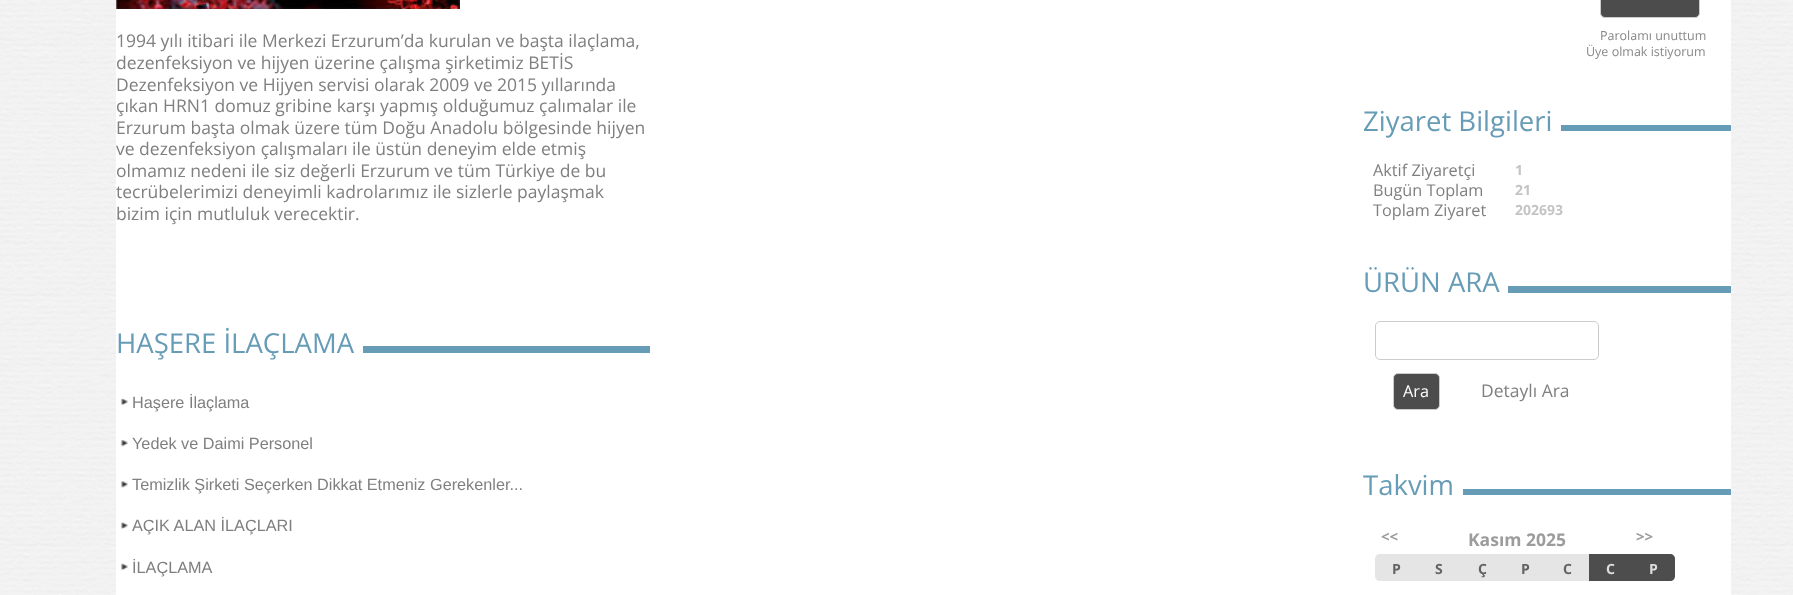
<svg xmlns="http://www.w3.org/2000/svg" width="1793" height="595">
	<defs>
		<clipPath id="clip1"><rect x="1363" y="459" width="368" height="50" /></clipPath>
	</defs>
	<rect width="100%" height="100%" fill="#FFFFFF" />
	<image x="0" y="0" width="1793" height="595" href="assets/img1.png" />
	<rect x="116" y="0" width="1615" height="595" fill="#FFFFFF" />
	<image x="116" y="0" width="344" height="9" href="assets/img2.png" />
	<g font-family="Open Sans" font-size="17.5" fill="#7F7F7F">
		<text x="116" y="47">1994 yılı itibari ile Merkezi Erzurum’da kurulan ve başta ilaçlama,</text>
		<text x="116" y="69">dezenfeksiyon ve hijyen üzerine çalışma şirketimiz BETİS</text>
		<text x="116" y="91">Dezenfeksiyon ve Hijyen servisi olarak 2009 ve 2015 yıllarında</text>
		<text x="116" y="112">çıkan HRN1 domuz gribine karşı yapmış olduğumuz çalımalar ile</text>
		<text x="116" y="134">Erzurum başta olmak üzere tüm Doğu Anadolu bölgesinde hijyen</text>
		<text x="116" y="155">ve dezenfeksiyon çalışmaları ile üstün deneyim elde etmiş</text>
		<text x="116" y="177">olmamız nedeni ile siz değerli Erzurum ve tüm Türkiye de bu</text>
		<text x="116" y="198">tecrübelerimizi deneyimli kadrolarımız ile sizlerle paylaşmak</text>
		<text x="116" y="220">bizim için mutluluk verecektir.</text>
	</g>
	<text x="116" y="353" font-family="Open Sans" font-size="27.5" fill="#679CB7">HAŞERE İLAÇLAMA</text>
	<rect x="363" y="346" width="287" height="7" fill="#679CB7" />
	<image x="120" y="398" width="8" height="8" href="assets/img3.png" />
	<text x="132" y="408" font-family="Liberation Sans" font-size="16.25" fill="#7F7F7F">Haşere İlaçlama</text>
	<image x="120" y="440" width="8" height="7" href="assets/img4.png" />
	<text x="132" y="449" font-family="Liberation Sans" font-size="16.25" fill="#7F7F7F">Yedek ve Daimi Personel</text>
	<image x="120" y="481" width="8" height="7" href="assets/img5.png" />
	<text x="132" y="490" font-family="Liberation Sans" font-size="16.25" fill="#7F7F7F">Temizlik Şirketi Seçerken Dikkat Etmeniz Gerekenler...</text>
	<image x="120" y="522" width="8" height="7" href="assets/img6.png" />
	<text x="132" y="531" font-family="Liberation Sans" font-size="16.25" fill="#7F7F7F">AÇIK ALAN İLAÇLARI</text>
	<image x="120" y="563" width="8" height="8" href="assets/img3.png" />
	<text x="132" y="573" font-family="Liberation Sans" font-size="16.25" fill="#7F7F7F">İLAÇLAMA</text>
	<rect x="1600.5" y="-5.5" width="99" height="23" rx="4.5" fill="#4C4C4C" stroke="#CCCCCC" />
	<g font-family="Open Sans" font-size="12.5" fill="#888888">
		<text x="1600" y="40">Parolamı unuttum</text>
		<text x="1586" y="56">Üye olmak istiyorum</text>
	</g>
	<text x="1363" y="131" font-family="Open Sans" font-size="27.5" fill="#679CB7">Ziyaret Bilgileri</text>
	<rect x="1561" y="125" width="170" height="6" fill="#679CB7" />
	<text x="1373" y="176" font-family="Open Sans" font-size="16.25" fill="#7F7F7F">Aktif Ziyaretçi</text>
	<text x="1515" y="175" font-family="Open Sans" font-size="14" font-weight="700" fill="#C4C4C4">1</text>
	<text x="1373" y="196" font-family="Open Sans" font-size="16.25" fill="#7F7F7F">Bugün Toplam</text>
	<text x="1515" y="195" font-family="Open Sans" font-size="14" font-weight="700" fill="#C4C4C4">21</text>
	<text x="1373" y="216" font-family="Open Sans" font-size="16.25" fill="#7F7F7F">Toplam Ziyaret</text>
	<text x="1515" y="215" font-family="Open Sans" font-size="14" font-weight="700" fill="#C4C4C4">202693</text>
	<text x="1363" y="292" font-family="Open Sans" font-size="27.5" fill="#679CB7">ÜRÜN ARA</text>
	<rect x="1508" y="286" width="223" height="7" fill="#679CB7" />
	<rect x="1375.5" y="321.5" width="223" height="38" rx="4.5" fill="none" stroke="#CCCCCC" />
	<rect x="1393.5" y="373.5" width="46" height="36" rx="4.5" fill="#4C4C4C" stroke="#CCCCCC" />
	<text x="1403" y="397" font-family="Open Sans" font-size="16.25" fill="#FFFFFF">Ara</text>
	<text x="1481" y="397" font-family="Open Sans" font-size="17.5" fill="#7F7F7F">Detaylı Ara</text>
	<g clip-path="url(#clip1)">
		<text x="1363" y="495" font-family="Open Sans" font-size="27.5" fill="#679CB7">Takvim</text>
	</g>
	<rect x="1463" y="489" width="268" height="6" fill="#679CB7" />
	<text x="1381" y="542" font-family="Open Sans" font-size="15" font-weight="700" fill="#9C9C9C">&lt;&lt;</text>
	<text x="1468" y="546" font-family="Open Sans" font-size="17.5" font-weight="700" fill="#9C9C9C">Kasım 2025</text>
	<text x="1636" y="542" font-family="Open Sans" font-size="15" font-weight="700" fill="#9C9C9C">&gt;&gt;</text>
	<path d="M1380 554H1418V581H1380C1377 581 1375 579 1375 576V559C1375 556 1377 554 1380 554Z" fill="#E5E5E5" />
	<text x="1392" y="574" font-family="Open Sans" font-size="14" font-weight="700" fill="#636363">P</text>
	<rect x="1418" y="554" width="171" height="27" fill="#E5E5E5" />
	<g font-family="Open Sans" font-size="14" font-weight="700" fill="#636363">
		<text x="1435" y="574">S</text>
		<text x="1478" y="574">Ç</text>
		<text x="1521" y="574">P</text>
		<text x="1563" y="574">C</text>
	</g>
	<rect x="1589" y="554" width="44" height="27" fill="#4D4D4D" />
	<text x="1606" y="574" font-family="Open Sans" font-size="14" font-weight="700" fill="#DDDDDD">C</text>
	<path d="M1633 554H1670C1673 554 1675 556 1675 559V576C1675 579 1673 581 1670 581H1633Z" fill="#4D4D4D" />
	<text x="1649" y="574" font-family="Open Sans" font-size="14" font-weight="700" fill="#DDDDDD">P</text>
</svg>
